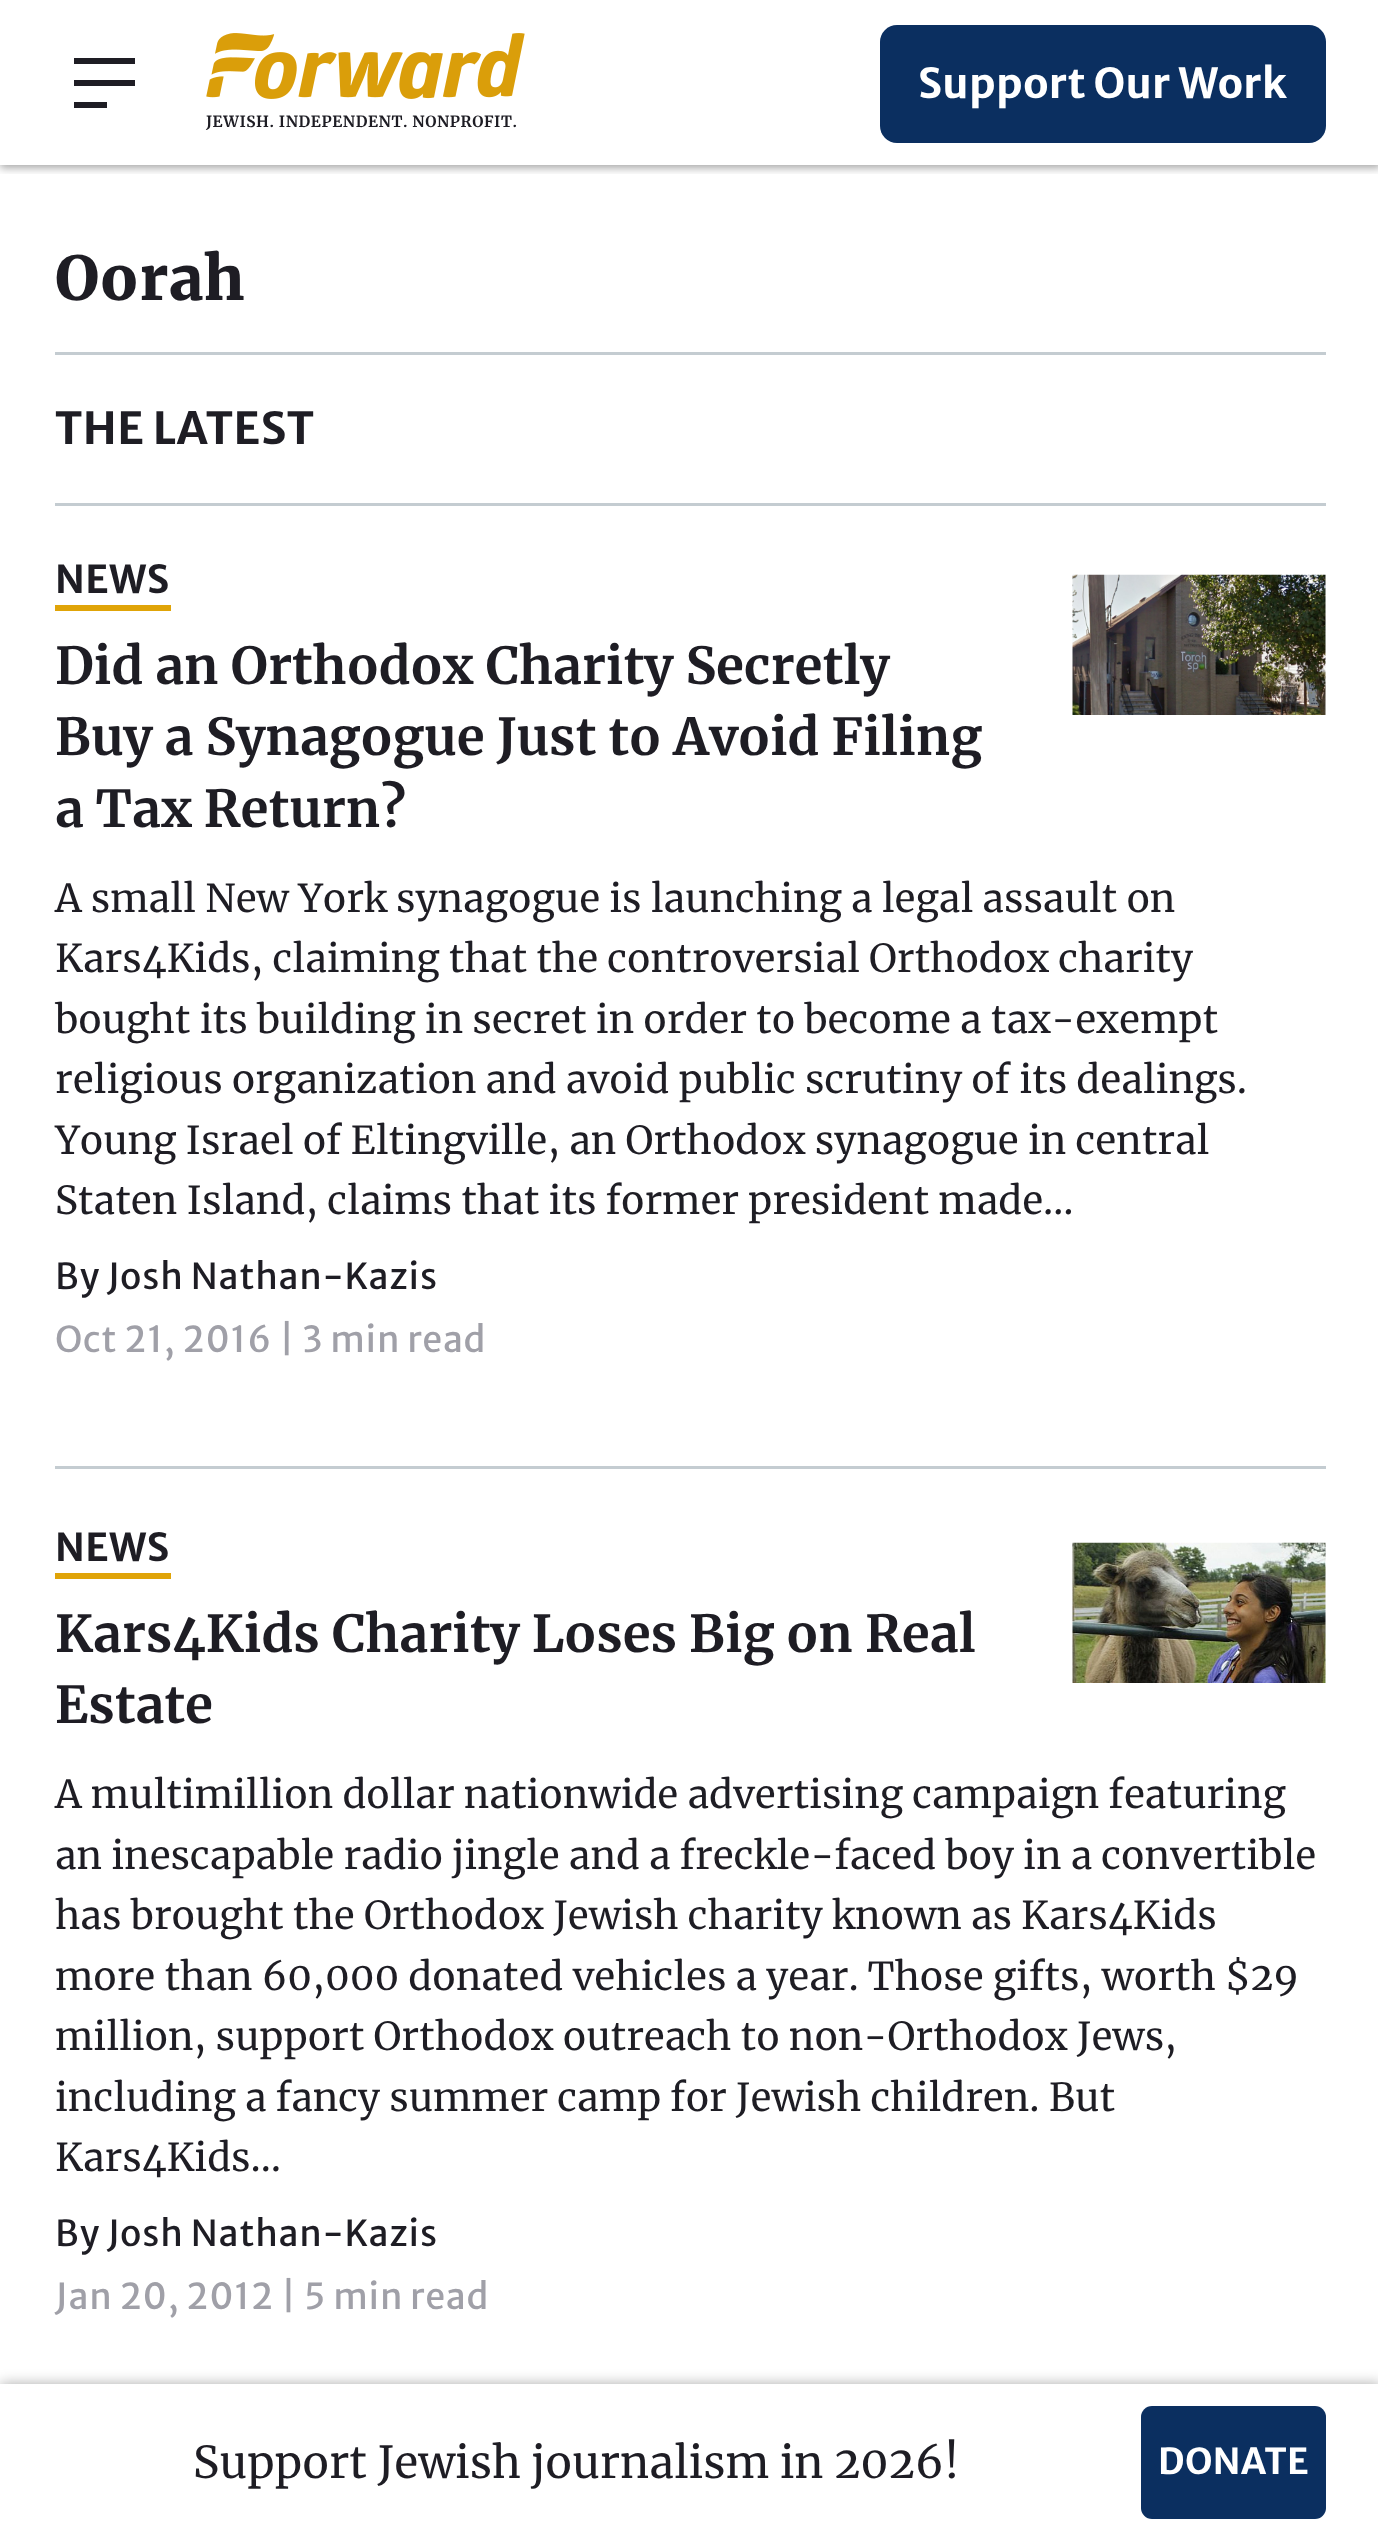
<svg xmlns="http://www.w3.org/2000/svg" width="1378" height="2538">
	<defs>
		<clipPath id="clip1"><rect x="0" y="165" width="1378" height="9" /></clipPath>
	</defs>
	<rect width="100%" height="100%" fill="#FFFFFF" />
	<g clip-path="url(#clip1)">
		<rect x="0" y="3" width="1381" height="165" fill="#000000" fill-opacity="0.35" filter="blur(4px)" />
	</g>
	<rect x="74" y="58" width="61" height="6" fill="#1E1D24" />
	<rect x="74" y="80" width="61" height="6" fill="#1E1D24" />
	<rect x="74" y="102" width="33" height="6" fill="#1E1D24" />
	<rect x="880" y="25" width="446" height="118" rx="17" fill="#0B2F60" />
	<text x="918" y="98" font-family="Merriweather Sans" font-size="41.25" font-weight="700" letter-spacing="0.4" fill="#FFFFFF">Support Our Work</text>
	<image x="206" y="33" width="319" height="66" href="assets/img1.png" />
	<text x="206" y="127" font-family="Merriweather" font-size="15.4" font-weight="700" letter-spacing="0.55" fill="#1E1D24">JEWISH. INDEPENDENT. NONPROFIT.</text>
	<rect x="55" y="352" width="1271" height="3" fill="#C4CCD1" />
	<text x="55" y="300" font-family="Merriweather" font-size="60.5" font-weight="900" letter-spacing="0.55" fill="#1E1D24">Oorah</text>
	<rect x="55" y="503" width="1271" height="3" fill="#C4CCD1" />
	<text x="55" y="444" font-family="Merriweather Sans" font-size="44" font-weight="700" letter-spacing="0.5" fill="#1E1D24">THE LATEST</text>
	<rect x="55" y="1466" width="1271" height="3" fill="#C4CCD1" />
	<text x="55" y="593" font-family="Merriweather Sans" font-size="38.5" font-weight="700" letter-spacing="0.55" fill="#1E1D24">NEWS</text>
	<rect x="55" y="605" width="116" height="6" fill="#E0A408" />
	<g font-family="Merriweather" font-size="50.9" font-weight="700" fill="#1E1D24">
		<text x="55" y="684">Did an Orthodox Charity Secretly</text>
		<text x="55" y="755">Buy a Synagogue Just to Avoid Filing</text>
		<text x="55" y="827">a Tax Return?</text>
	</g>
	<g font-family="Merriweather" font-size="38.5" fill="#1E1D24">
		<text x="55" y="912">A small New York synagogue is launching a legal assault on</text>
		<text x="55" y="972">Kars4Kids, claiming that the controversial Orthodox charity</text>
		<text x="55" y="1033">bought its building in secret in order to become a tax-exempt</text>
		<text x="55" y="1093">religious organization and avoid public scrutiny of its dealings.</text>
		<text x="55" y="1154">Young Israel of Eltingville, an Orthodox synagogue in central</text>
		<text x="55" y="1214">Staten Island, claims that its former president made…</text>
	</g>
	<text x="55" y="1289" font-family="Merriweather Sans" font-size="35.75" letter-spacing="0.8" fill="#1E1D24">By Josh Nathan-Kazis</text>
	<text x="55" y="1352" font-family="Merriweather Sans" font-size="35.75" letter-spacing="0.75" fill="#A0A0A8">Oct 21, 2016 | 3 min read</text>
	<image x="1072" y="574" width="254" height="141" href="assets/img2.png" />
	<text x="55" y="1561" font-family="Merriweather Sans" font-size="38.5" font-weight="700" letter-spacing="0.55" fill="#1E1D24">NEWS</text>
	<rect x="55" y="1573" width="116" height="6" fill="#E0A408" />
	<g font-family="Merriweather" font-size="50.9" font-weight="700" fill="#1E1D24">
		<text x="55" y="1652">Kars4Kids Charity Loses Big on Real</text>
		<text x="55" y="1723">Estate</text>
	</g>
	<g font-family="Merriweather" font-size="38.5" fill="#1E1D24">
		<text x="55" y="1808">A multimillion dollar nationwide advertising campaign featuring</text>
		<text x="55" y="1869">an inescapable radio jingle and a freckle-faced boy in a convertible</text>
		<text x="55" y="1929">has brought the Orthodox Jewish charity known as Kars4Kids</text>
		<text x="55" y="1990">more than 60,000 donated vehicles a year. Those gifts, worth $29</text>
		<text x="55" y="2050">million, support Orthodox outreach to non-Orthodox Jews,</text>
		<text x="55" y="2111">including a fancy summer camp for Jewish children. But</text>
		<text x="55" y="2171">Kars4Kids…</text>
	</g>
	<text x="55" y="2246" font-family="Merriweather Sans" font-size="35.75" letter-spacing="0.8" fill="#1E1D24">By Josh Nathan-Kazis</text>
	<text x="55" y="2309" font-family="Merriweather Sans" font-size="35.75" letter-spacing="0.75" fill="#A0A0A8">Jan 20, 2012 | 5 min read</text>
	<image x="1072" y="1542" width="254" height="141" href="assets/img3.png" />
	<rect x="0" y="2384" width="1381" height="154" fill="#000000" fill-opacity="0.33" filter="blur(7px)" />
	<rect x="0" y="2384" width="1378" height="154" fill="#FFFFFF" />
	<text x="193" y="2478" font-family="Merriweather" font-size="44" fill="#1E1D24">Support Jewish journalism in 2026!</text>
	<rect x="1141" y="2406" width="185" height="113" rx="11" fill="#0B2F60" />
	<text x="1158" y="2474" font-family="Merriweather Sans" font-size="35.75" font-weight="700" letter-spacing="0.4" fill="#FFFFFF">DONATE</text>
</svg>
